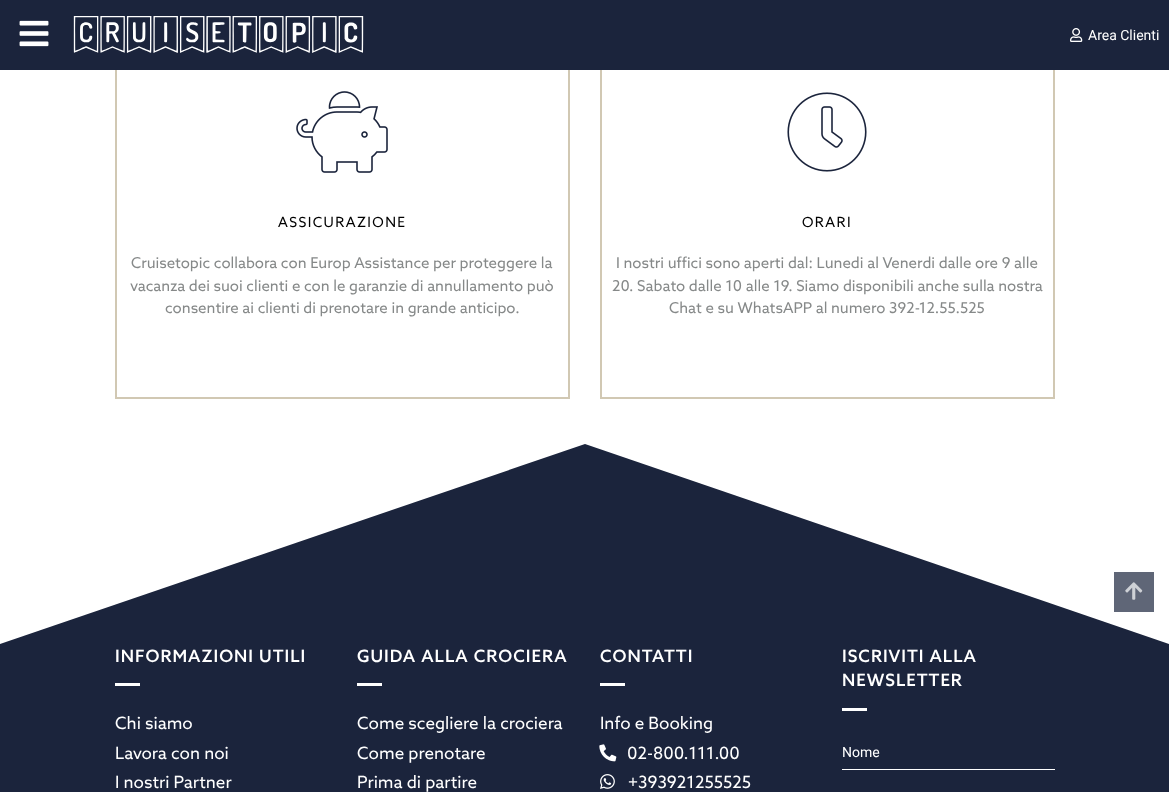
<svg xmlns="http://www.w3.org/2000/svg" width="1169" height="792">
	<rect width="100%" height="100%" fill="#FFFFFF" />
	<rect x="116" y="27" width="453" height="371" fill="none" stroke="#D1C8B3" stroke-width="2" />
	<rect x="601" y="27" width="453" height="371" fill="none" stroke="#D1C8B3" stroke-width="2" />
	<rect x="0" y="0" width="1169" height="70" fill="#1B243C" />
	<image x="19" y="20" width="30" height="27" href="assets/img1.png" />
	<image x="73" y="16" width="291" height="37" href="assets/img2.png" />
	<image x="1070" y="28" width="13" height="14" href="assets/img3.png" />
	<text x="1088" y="40" font-family="Roboto" font-size="14" fill="#FFFFFF">Area Clienti</text>
	<path d="M1169 644H0L585 444Z" fill="#1B243C" />
	<rect x="1114" y="572" width="40" height="40" fill="#5F6677" />
	<image x="1125" y="582" width="18" height="18" href="assets/img4.png" />
	<image x="296" y="91" width="92" height="82" href="assets/img5.png" />
	<text x="278" y="227" font-family="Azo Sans" font-size="14" letter-spacing="1.4" fill="#000000">ASSICURAZIONE</text>
	<g font-family="Azo Sans" font-size="15" fill="#868989">
		<text x="131" y="268">Cruisetopic collabora con Europ Assistance per proteggere la</text>
		<text x="130" y="291">vacanza dei suoi clienti e con le garanzie di annullamento può</text>
		<text x="165" y="313">consentire ai clienti di prenotare in grande anticipo.</text>
	</g>
	<image x="787" y="92" width="80" height="80" href="assets/img6.png" />
	<text x="802" y="227" font-family="Azo Sans" font-size="14" letter-spacing="1.4" fill="#000000">ORARI</text>
	<g font-family="Azo Sans" font-size="15" fill="#868989">
		<text x="616" y="268">I nostri uffici sono aperti dal: Lunedi al Venerdi dalle ore 9 alle</text>
		<text x="612" y="291">20. Sabato dalle 10 alle 19. Siamo disponibili anche sulla nostra</text>
		<text x="669" y="313">Chat e su WhatsAPP al numero 392-12.55.525</text>
	</g>
	<rect x="0" y="644" width="1169" height="148" fill="#1B243C" />
	<text x="115" y="662" font-family="Azo Sans" font-size="17" font-weight="500" letter-spacing="1" fill="#FFFFFF">INFORMAZIONI UTILI</text>
	<rect x="115" y="683" width="25" height="3" fill="#FFFFFF" />
	<g font-family="Azo Sans" font-size="17" fill="#FFFFFF">
		<text x="115" y="729">Chi siamo</text>
		<text x="115" y="759">Lavora con noi</text>
		<text x="115" y="788">I nostri Partner</text>
	</g>
	<text x="357" y="662" font-family="Azo Sans" font-size="17" font-weight="500" letter-spacing="1" fill="#FFFFFF">GUIDA ALLA CROCIERA</text>
	<rect x="357" y="683" width="25" height="3" fill="#FFFFFF" />
	<g font-family="Azo Sans" font-size="17" fill="#FFFFFF">
		<text x="357" y="729">Come scegliere la crociera</text>
		<text x="357" y="759">Come prenotare</text>
		<text x="357" y="788">Prima di partire</text>
	</g>
	<text x="600" y="662" font-family="Azo Sans" font-size="17" font-weight="500" letter-spacing="1" fill="#FFFFFF">CONTATTI</text>
	<rect x="600" y="683" width="25" height="3" fill="#FFFFFF" />
	<text x="600" y="729" font-family="Azo Sans" font-size="17" fill="#FFFFFF">Info e Booking</text>
	<image x="599" y="744" width="18" height="18" href="assets/img7.png" />
	<text x="627" y="759" font-family="Azo Sans" font-size="17" fill="#FFFFFF">02-800.111.00</text>
	<image x="600" y="774" width="15" height="15" href="assets/img8.png" />
	<text x="628" y="788" font-family="Azo Sans" font-size="17" fill="#FFFFFF">+393921255525</text>
	<g font-family="Azo Sans" font-size="17" font-weight="500" letter-spacing="1" fill="#FFFFFF">
		<text x="842" y="662">ISCRIVITI ALLA</text>
		<text x="842" y="686">NEWSLETTER</text>
	</g>
	<rect x="842" y="708" width="25" height="3" fill="#FFFFFF" />
	<rect x="842" y="769" width="213" height="1" fill="#FFFFFF" />
	<text x="842" y="757" font-family="Roboto" font-size="14" fill="#FFFFFF">Nome</text>
</svg>
